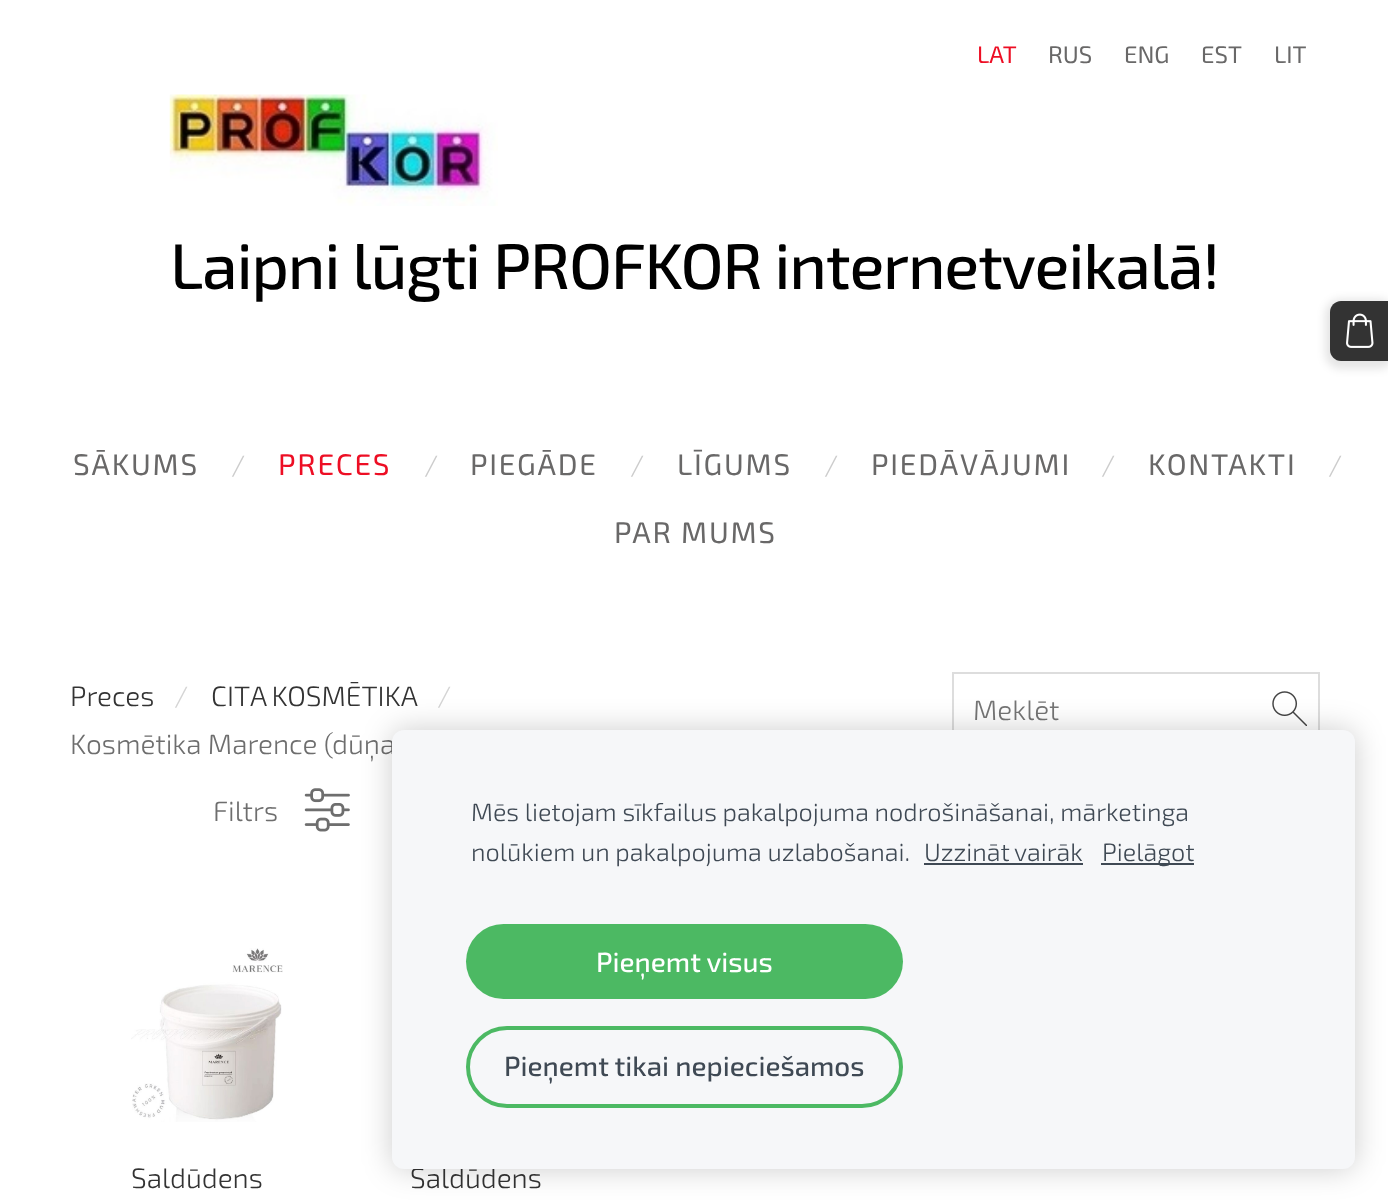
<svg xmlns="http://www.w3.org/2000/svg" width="1388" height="1203">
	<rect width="100%" height="100%" fill="#FFFFFF" />
	<text x="977" y="63" font-family="'Exo 2'" font-size="24" fill="#ED0E24">LAT</text>
	<g font-family="'Exo 2'" font-size="24" fill="#696868">
		<text x="1048" y="63">RUS</text>
		<text x="1124" y="63">ENG</text>
		<text x="1201" y="63">EST</text>
		<text x="1274" y="63">LIT</text>
	</g>
	<image x="169" y="94" width="329" height="112" href="assets/img1.png" />
	<text x="170" y="289" font-family="'Exo 2'" font-size="64.4" font-weight="500" letter-spacing="-1.25" fill="#000000">Laipni lūgti PROFKOR internetveikalā!</text>
	<text x="73" y="475" font-family="'Exo 2'" font-size="29.75" letter-spacing="1.75" fill="#696868">SĀKUMS</text>
	<text x="231" y="475" font-family="'Exo 2'" font-size="28" font-weight="300" fill="#CCCCCC">/</text>
	<text x="278" y="475" font-family="'Exo 2'" font-size="29.75" letter-spacing="1.75" fill="#ED0E24">PRECES</text>
	<text x="424" y="475" font-family="'Exo 2'" font-size="28" font-weight="300" fill="#CCCCCC">/</text>
	<text x="470" y="475" font-family="'Exo 2'" font-size="29.75" letter-spacing="1.75" fill="#696868">PIEGĀDE</text>
	<text x="630" y="475" font-family="'Exo 2'" font-size="28" font-weight="300" fill="#CCCCCC">/</text>
	<text x="677" y="475" font-family="'Exo 2'" font-size="29.75" letter-spacing="1.75" fill="#696868">LĪGUMS</text>
	<text x="824" y="475" font-family="'Exo 2'" font-size="28" font-weight="300" fill="#CCCCCC">/</text>
	<text x="871" y="475" font-family="'Exo 2'" font-size="29.75" letter-spacing="1.75" fill="#696868">PIEDĀVĀJUMI</text>
	<text x="1101" y="475" font-family="'Exo 2'" font-size="28" font-weight="300" fill="#CCCCCC">/</text>
	<text x="1148" y="475" font-family="'Exo 2'" font-size="29.75" letter-spacing="1.75" fill="#696868">KONTAKTI</text>
	<text x="1328" y="475" font-family="'Exo 2'" font-size="28" font-weight="300" fill="#CCCCCC">/</text>
	<text x="614" y="543" font-family="'Exo 2'" font-size="29.75" letter-spacing="1.75" fill="#696868">PAR MUMS</text>
	<rect x="1325" y="299" width="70" height="70" rx="16" fill="#000000" fill-opacity="0.1" filter="blur(4.5px)" />
	<path d="M1341 301H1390V361H1341C1335 361 1330 356 1330 350V312C1330 306 1335 301 1341 301Z" fill="#333333" />
	<image x="1346" y="313" width="28" height="35" href="assets/img2.png" />
	<text x="70" y="706" font-family="'Exo 2'" font-size="28" font-weight="300" fill="#333333">Preces</text>
	<text x="174" y="706" font-family="'Exo 2'" font-size="28" font-weight="300" fill="#D4D4D4">/</text>
	<text x="211" y="706" word-spacing="-2" font-family="'Exo 2'" font-size="28" font-weight="300" fill="#333333">CITA KOSMĒTIKA</text>
	<text x="437" y="706" font-family="'Exo 2'" font-size="28" font-weight="300" fill="#D4D4D4">/</text>
	<g font-family="'Exo 2'" font-size="28" font-weight="300" fill="#6E6E6E">
		<text x="70" y="754">Kosmētika Marence (dūņa</text>
		<text x="213" y="821">Filtrs</text>
	</g>
	<image x="304" y="788" width="46" height="44" href="assets/img3.png" />
	<image x="131" y="948" width="152" height="174" href="assets/img4.png" />
	<g font-family="'Exo 2'" font-size="28" font-weight="300" fill="#333333">
		<text x="131" y="1188">Saldūdens</text>
		<text x="410" y="1188">Saldūdens</text>
	</g>
	<rect x="953" y="673" width="366" height="73" fill="none" stroke="#DDDDDD" stroke-width="2" />
	<text x="973" y="720" font-family="'Exo 2'" font-size="28" font-weight="300" fill="#757575">Meklēt</text>
	<image x="1272" y="691" width="35" height="35" href="assets/img5.png" />
	<rect x="392" y="730" width="963" height="439" rx="12" fill="#000000" fill-opacity="0.2" filter="blur(15px)" />
	<rect x="392" y="730" width="963" height="439" rx="12" fill="#F6F7F9" />
	<g font-family="'Exo 2'" font-size="25.2" font-weight="300" fill="#3F4954">
		<text x="471" y="821">Mēs lietojam sīkfailus pakalpojuma nodrošināšanai, mārketinga</text>
		<text x="471" y="861">nolūkiem un pakalpojuma uzlabošanai.</text>
		<text x="924" y="861" word-spacing="-1">Uzzināt vairāk</text>
	</g>
	<rect x="924" y="863" width="159" height="2" fill="#3F4954" />
	<rect x="1101" y="863" width="93" height="2" fill="#3F4954" />
	<text x="1102" y="861" font-family="'Exo 2'" font-size="25.2" font-weight="300" fill="#3F4954">Pielāgot</text>
	<rect x="466" y="924" width="437" height="75" rx="37.5" fill="#4CB963" />
	<text x="596" y="972" font-family="'Exo 2'" font-size="27.75" font-weight="500" fill="#FFFFFF">Pieņemt visus</text>
	<rect x="468" y="1028" width="433" height="78" rx="39" fill="none" stroke="#4CB963" stroke-width="4" />
	<text x="504" y="1076" font-family="'Exo 2'" font-size="27.75" font-weight="500" fill="#3F4954">Pieņemt tikai nepieciešamos</text>
</svg>
